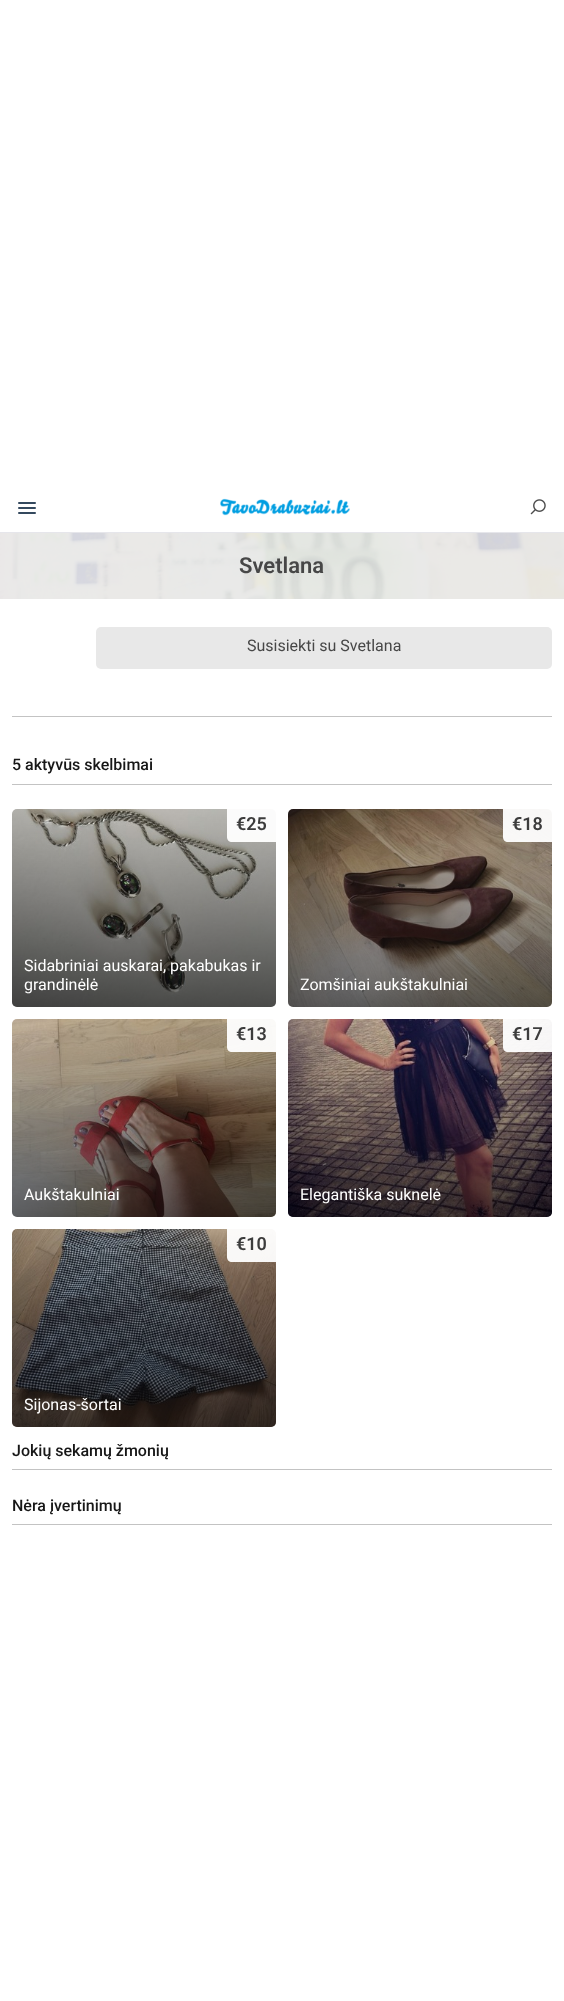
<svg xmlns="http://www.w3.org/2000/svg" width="564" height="2001">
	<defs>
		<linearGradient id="g1" gradientUnits="userSpaceOnUse" x1="144" y1="809" x2="144" y2="1007"><stop offset="0" stop-color="#000000" stop-opacity="0" /><stop offset="1" stop-color="#000000" stop-opacity="0.6" /></linearGradient>
		<linearGradient id="g2" gradientUnits="userSpaceOnUse" x1="420" y1="809" x2="420" y2="1007"><stop offset="0" stop-color="#000000" stop-opacity="0" /><stop offset="1" stop-color="#000000" stop-opacity="0.6" /></linearGradient>
		<linearGradient id="g3" gradientUnits="userSpaceOnUse" x1="144" y1="1019" x2="144" y2="1217"><stop offset="0" stop-color="#000000" stop-opacity="0" /><stop offset="1" stop-color="#000000" stop-opacity="0.6" /></linearGradient>
		<linearGradient id="g4" gradientUnits="userSpaceOnUse" x1="420" y1="1019" x2="420" y2="1217"><stop offset="0" stop-color="#000000" stop-opacity="0" /><stop offset="1" stop-color="#000000" stop-opacity="0.6" /></linearGradient>
		<linearGradient id="g5" gradientUnits="userSpaceOnUse" x1="144" y1="1229" x2="144" y2="1427"><stop offset="0" stop-color="#000000" stop-opacity="0" /><stop offset="1" stop-color="#000000" stop-opacity="0.6" /></linearGradient>
	</defs>
	<rect width="100%" height="100%" fill="#FFFFFF" />
	<rect x="0" y="532" width="564" height="1" fill="#E6E6EB" />
	<rect x="18" y="502" width="18" height="2" rx="1" fill="#34495E" />
	<rect x="18" y="507" width="18" height="2" rx="1" fill="#34495E" />
	<rect x="18" y="512" width="18" height="2" rx="1" fill="#34495E" />
	<image x="220" y="498" width="130" height="18" href="assets/img1.png" />
	<image x="530" y="499" width="16" height="16" href="assets/img2.png" />
	<image x="0" y="533" width="564" height="66" href="assets/img3.png" />
	<text x="239" y="573" font-family="Roboto" font-size="22" font-weight="600" fill="#474747">Svetlana</text>
	<rect x="12" y="716" width="540" height="1" fill="#C3C3C3" />
	<rect x="96" y="627" width="456" height="42" rx="5" fill="#E8E8E8" />
	<text x="247" y="651" font-family="Roboto" font-size="16" fill="#474747">Susisiekti su Svetlana</text>
	<rect x="12" y="784" width="540" height="1" fill="#C3C3C3" />
	<text x="12" y="770" font-family="Roboto" font-size="16" font-weight="500" fill="#171717">5 aktyvūs skelbimai</text>
	<image x="12" y="809" width="264" height="198" href="assets/img4.png" />
	<rect x="12" y="809" width="264" height="198" rx="5" fill="url(#g1)" />
	<path d="M227 809H276V842H232C229 842 227 840 227 837Z" fill="#FFFFFF" fill-opacity="0.95" />
	<text x="236" y="830" font-family="Roboto" font-size="18" font-weight="600" fill="#3C3C3C">€25</text>
	<g font-family="Roboto" font-size="16" fill="#FFFFFF">
		<text x="24" y="971">Sidabriniai auskarai, pakabukas ir</text>
		<text x="24" y="990">grandinėlė</text>
	</g>
	<image x="288" y="809" width="264" height="198" href="assets/img5.png" />
	<rect x="288" y="809" width="264" height="198" rx="5" fill="url(#g2)" />
	<path d="M503 809H552V842H508C505 842 503 840 503 837Z" fill="#FFFFFF" fill-opacity="0.95" />
	<text x="512" y="830" font-family="Roboto" font-size="18" font-weight="600" fill="#3C3C3C">€18</text>
	<text x="300" y="990" font-family="Roboto" font-size="16" fill="#FFFFFF">Zomšiniai aukštakulniai</text>
	<image x="12" y="1019" width="264" height="198" href="assets/img6.png" />
	<rect x="12" y="1019" width="264" height="198" rx="5" fill="url(#g3)" />
	<path d="M227 1019H276V1052H232C229 1052 227 1050 227 1047Z" fill="#FFFFFF" fill-opacity="0.95" />
	<text x="236" y="1040" font-family="Roboto" font-size="18" font-weight="600" fill="#3C3C3C">€13</text>
	<text x="24" y="1200" font-family="Roboto" font-size="16" fill="#FFFFFF">Aukštakulniai</text>
	<image x="288" y="1019" width="264" height="198" href="assets/img7.png" />
	<rect x="288" y="1019" width="264" height="198" rx="5" fill="url(#g4)" />
	<path d="M503 1019H552V1052H508C505 1052 503 1050 503 1047Z" fill="#FFFFFF" fill-opacity="0.95" />
	<text x="512" y="1040" font-family="Roboto" font-size="18" font-weight="600" fill="#3C3C3C">€17</text>
	<text x="300" y="1200" font-family="Roboto" font-size="16" fill="#FFFFFF">Elegantiška suknelė</text>
	<image x="12" y="1229" width="264" height="198" href="assets/img8.png" />
	<rect x="12" y="1229" width="264" height="198" rx="5" fill="url(#g5)" />
	<path d="M227 1229H276V1262H232C229 1262 227 1260 227 1257Z" fill="#FFFFFF" fill-opacity="0.95" />
	<text x="236" y="1250" font-family="Roboto" font-size="18" font-weight="600" fill="#3C3C3C">€10</text>
	<text x="24" y="1410" font-family="Roboto" font-size="16" fill="#FFFFFF">Sijonas-šortai</text>
	<rect x="12" y="1469" width="540" height="1" fill="#C3C3C3" />
	<text x="12" y="1456" font-family="Roboto" font-size="16" font-weight="500" fill="#171717">Jokių sekamų žmonių</text>
	<rect x="12" y="1524" width="540" height="1" fill="#C3C3C3" />
	<text x="12" y="1511" font-family="Roboto" font-size="16" font-weight="500" fill="#171717">Nėra įvertinimų</text>
</svg>
